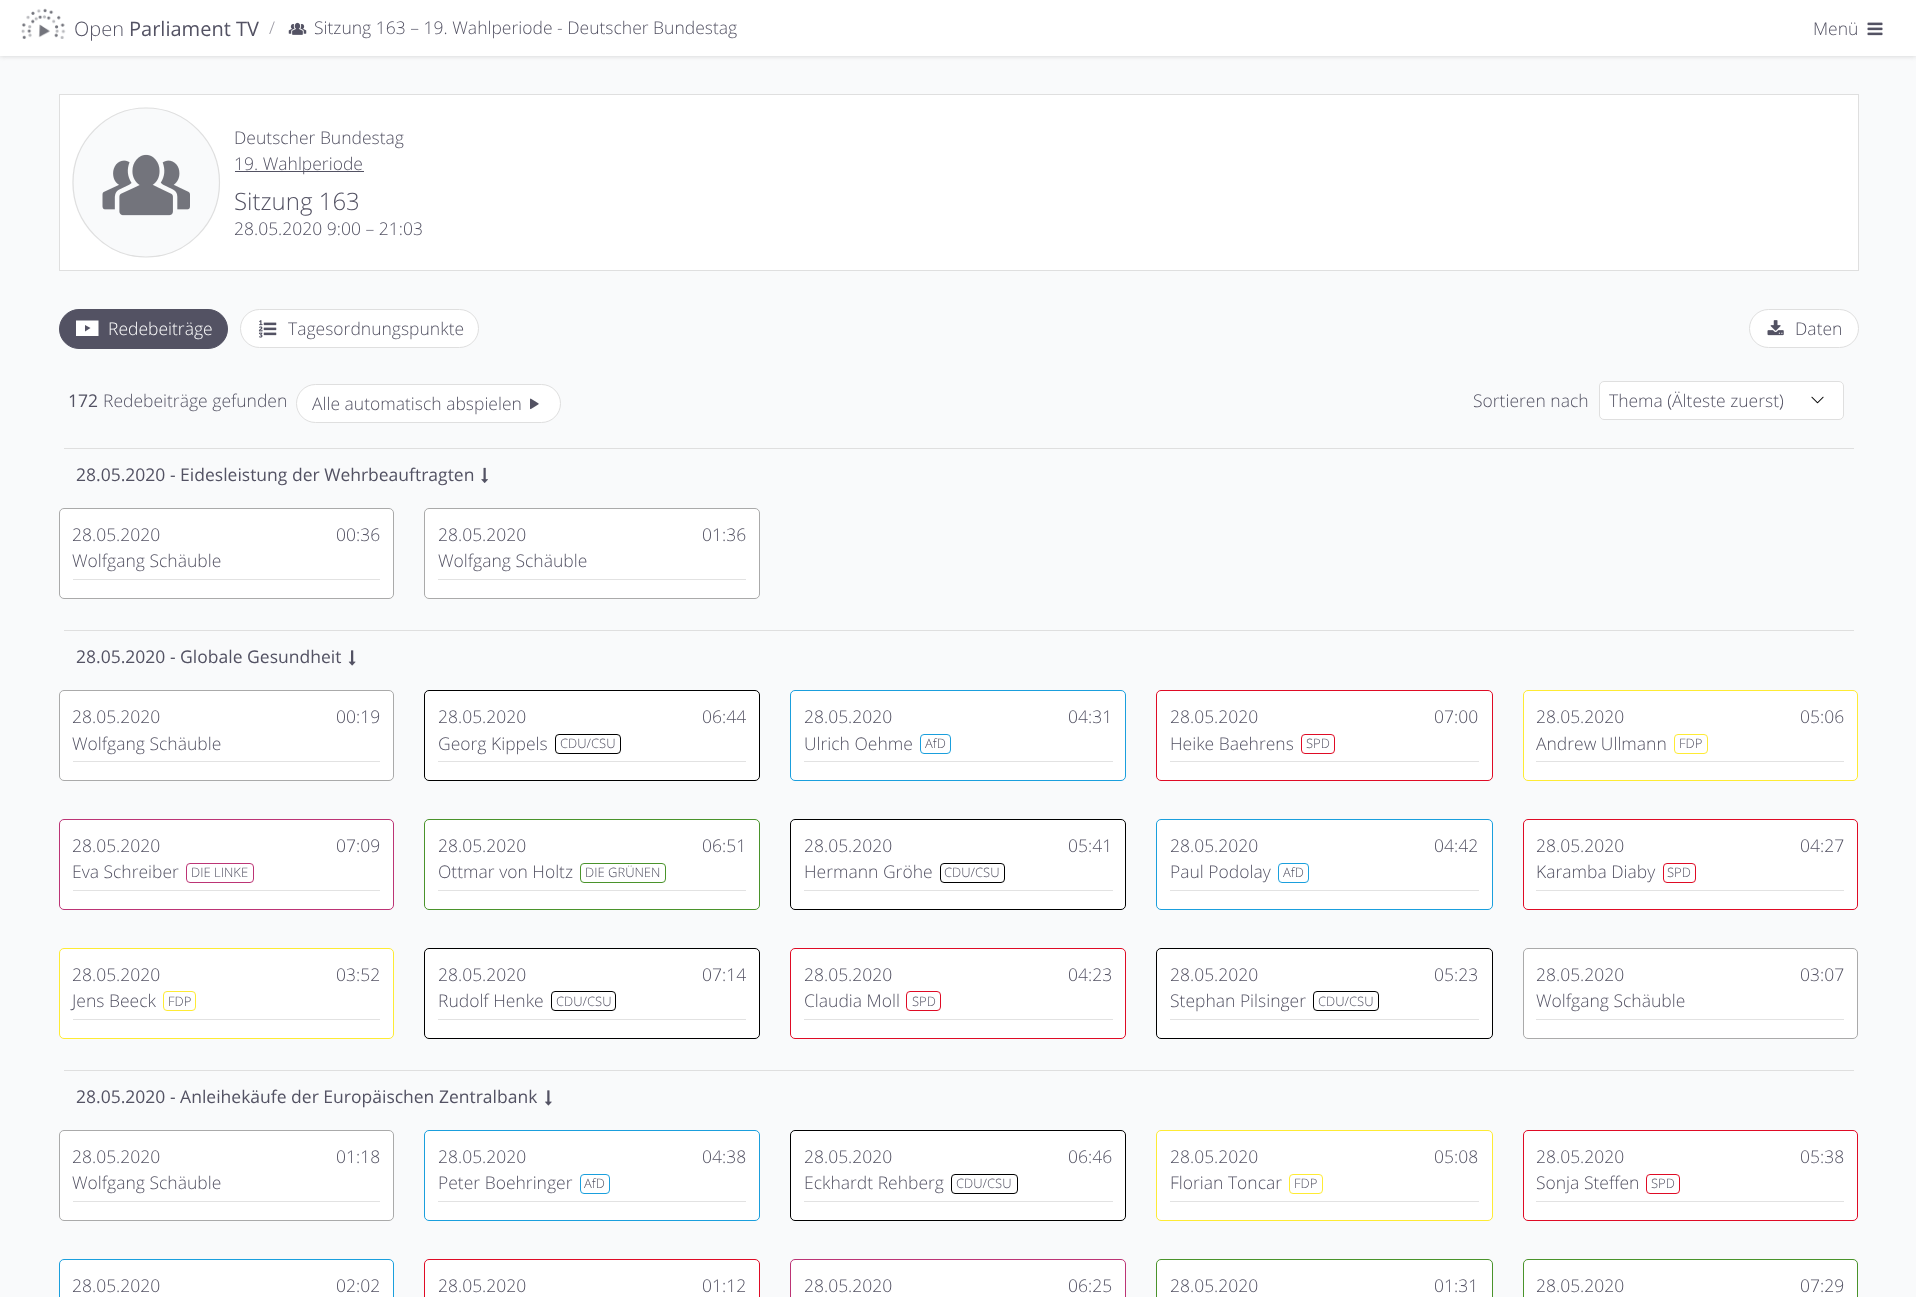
<svg xmlns="http://www.w3.org/2000/svg" width="1916" height="1297">
	<rect width="100%" height="100%" fill="#F9FAFB" />
	<rect x="0" y="0" width="1916" height="56" fill="#CFCFCF" filter="blur(2.5px)" />
	<rect x="0" y="0" width="1916" height="56" fill="#FFFFFF" />
	<image x="21" y="8" width="45" height="31" href="assets/img1.png" />
	<text x="74" y="36" font-family="Open Sans" font-size="20" font-weight="300" fill="#535263">Open</text>
	<text x="129" y="36" font-family="Open Sans" font-size="20" fill="#535263">Parliament TV</text>
	<text x="269" y="34" font-family="Open Sans" font-size="17.5" font-weight="300" fill="#9897A1">/</text>
	<image x="288" y="22" width="19" height="13" href="assets/img2.png" />
	<g font-family="Open Sans" font-size="17.5" font-weight="300" fill="#535263">
		<text x="314" y="34">Sitzung 163 – 19. Wahlperiode - Deutscher Bundestag</text>
		<text x="1813" y="35">Menü</text>
	</g>
	<image x="1867" y="22" width="16" height="14" href="assets/img3.png" />
	<rect x="59.5" y="94.5" width="1799" height="176" fill="#FFFFFF" stroke="#DFDFDF" />
	<ellipse cx="146" cy="182.5" rx="74" ry="75" fill="#F9FAFB" />
	<path d="M146 108C186.5 108 219.5 141.5 219.5 182.5C219.5 223.5 186.5 257 146 257C106 257 73 223.5 73 182.5C73 141.5 106 108 146 108Z" fill="none" stroke="#DFDFDF" stroke-width="1.2" />
	<image x="102" y="154" width="88" height="62" href="assets/img4.png" />
	<text x="234" y="144" font-family="Open Sans" font-size="17.5" font-weight="300" fill="#535263">Deutscher Bundestag</text>
	<rect x="235" y="171" width="129" height="1" fill="#535263" />
	<text x="234" y="170" font-family="Open Sans" font-size="17.5" font-weight="300" fill="#535263">19. Wahlperiode</text>
	<text x="234" y="210" font-family="Open Sans" font-size="24" font-weight="300" fill="#535263">Sitzung 163</text>
	<text x="234" y="235" font-family="Open Sans" font-size="17.5" font-weight="300" fill="#535263">28.05.2020 9:00 – 21:03</text>
	<rect x="59.5" y="309.5" width="168" height="39" rx="19.5" fill="#535263" stroke="#535263" />
	<path d="M85 325L90.5 328L85 331.5ZM76 320.5V336H98.5V320.5Z" fill="#FFFFFF" />
	<text x="108" y="335" font-family="Open Sans" font-size="17.5" font-weight="300" fill="#FFFFFF">Redebeiträge</text>
	<rect x="240.5" y="309.5" width="238" height="38" rx="19" fill="#FFFFFF" stroke="#DFDFDF" />
	<image x="258" y="320" width="19" height="18" href="assets/img5.png" />
	<text x="288" y="335" font-family="Open Sans" font-size="17.5" font-weight="300" fill="#535263">Tagesordnungspunkte</text>
	<rect x="1749.5" y="309.5" width="109" height="38" rx="19" fill="#FFFFFF" stroke="#DFDFDF" />
	<image x="1767" y="320" width="17" height="16" href="assets/img6.png" />
	<text x="1795" y="335" font-family="Open Sans" font-size="17.5" font-weight="300" fill="#535263">Daten</text>
	<text x="68" y="407" font-family="Open Sans" font-size="17.5" fill="#535263">172</text>
	<text x="103" y="407" font-family="Open Sans" font-size="17.5" font-weight="300" fill="#535263">Redebeiträge gefunden</text>
	<rect x="296.5" y="384.5" width="264" height="38" rx="19" fill="#FFFFFF" stroke="#DFDFDF" />
	<text x="312" y="410" font-family="Open Sans" font-size="17.5" font-weight="300" fill="#535263">Alle automatisch abspielen</text>
	<image x="530" y="398" width="9" height="12" href="assets/img7.png" />
	<text x="1473" y="407" font-family="Open Sans" font-size="17.5" font-weight="300" fill="#535263">Sortieren nach</text>
	<rect x="1599" y="381" width="245" height="39" rx="5" fill="#FFFFFF" />
	<image x="1811" y="396" width="13" height="8" href="assets/img8.png" />
	<rect x="1599.5" y="381.5" width="244" height="38" rx="4.5" fill="none" stroke="#DFDFDF" />
	<text x="1609" y="407" font-family="Open Sans" font-size="17.5" font-weight="300" fill="#535263">Thema (Älteste zuerst)</text>
	<rect x="64" y="448" width="1790" height="1" fill="#DFDFDF" />
	<text x="76" y="481" font-family="Open Sans" font-size="17.5" fill="#535263">28.05.2020 - Eidesleistung der Wehrbeauftragten</text>
	<image x="481" y="467" width="7" height="16" href="assets/img9.png" />
	<rect x="59.5" y="508.5" width="334" height="90" rx="4.5" fill="#FFFFFF" stroke="#AAAAAA" />
	<g font-family="Open Sans" font-size="17.5" font-weight="300" fill="#535263">
		<text x="72" y="541">28.05.2020</text>
		<text x="336" y="541">00:36</text>
		<text x="72" y="567">Wolfgang Schäuble</text>
	</g>
	<rect x="73" y="579" width="307" height="1" fill="#E2E2E2" />
	<rect x="424.5" y="508.5" width="335" height="90" rx="4.5" fill="#FFFFFF" stroke="#AAAAAA" />
	<g font-family="Open Sans" font-size="17.5" font-weight="300" fill="#535263">
		<text x="438" y="541">28.05.2020</text>
		<text x="702" y="541">01:36</text>
		<text x="438" y="567">Wolfgang Schäuble</text>
	</g>
	<rect x="438" y="579" width="308" height="1" fill="#E2E2E2" />
	<rect x="64" y="630" width="1790" height="1" fill="#DFDFDF" />
	<text x="76" y="663" font-family="Open Sans" font-size="17.5" fill="#535263">28.05.2020 - Globale Gesundheit</text>
	<image x="348" y="650" width="8" height="16" href="assets/img10.png" />
	<rect x="59.5" y="690.5" width="334" height="90" rx="4.5" fill="#FFFFFF" stroke="#AAAAAA" />
	<g font-family="Open Sans" font-size="17.5" font-weight="300" fill="#535263">
		<text x="72" y="723">28.05.2020</text>
		<text x="336" y="723">00:19</text>
		<text x="72" y="750">Wolfgang Schäuble</text>
	</g>
	<rect x="73" y="761" width="307" height="1" fill="#E2E2E2" />
	<rect x="424.5" y="690.5" width="335" height="90" rx="4.5" fill="#FFFFFF" stroke="#000000" />
	<g font-family="Open Sans" font-size="17.5" font-weight="300" fill="#535263">
		<text x="438" y="723">28.05.2020</text>
		<text x="702" y="723">06:44</text>
		<text x="438" y="750">Georg Kippels</text>
	</g>
	<rect x="555.5" y="734.5" width="65" height="19" rx="3.5" fill="none" stroke="#000000" />
	<text x="560" y="748" font-family="Open Sans" font-size="13" font-weight="300" fill="#535263">CDU/CSU</text>
	<rect x="438" y="761" width="308" height="1" fill="#E2E2E2" />
	<rect x="790.5" y="690.5" width="335" height="90" rx="4.5" fill="#FFFFFF" stroke="#1A9FDD" />
	<g font-family="Open Sans" font-size="17.5" font-weight="300" fill="#535263">
		<text x="804" y="723">28.05.2020</text>
		<text x="1068" y="723">04:31</text>
		<text x="804" y="750">Ulrich Oehme</text>
	</g>
	<rect x="920.5" y="734.5" width="30" height="19" rx="3.5" fill="none" stroke="#1A9FDD" />
	<text x="925" y="748" font-family="Open Sans" font-size="13" font-weight="300" fill="#535263">AfD</text>
	<rect x="804" y="761" width="309" height="1" fill="#E2E2E2" />
	<rect x="1156.5" y="690.5" width="336" height="90" rx="4.5" fill="#FFFFFF" stroke="#DF0B25" />
	<g font-family="Open Sans" font-size="17.5" font-weight="300" fill="#535263">
		<text x="1170" y="723">28.05.2020</text>
		<text x="1434" y="723">07:00</text>
		<text x="1170" y="750">Heike Baehrens</text>
	</g>
	<rect x="1301.5" y="734.5" width="33" height="19" rx="3.5" fill="none" stroke="#DF0B25" />
	<text x="1306" y="748" font-family="Open Sans" font-size="13" font-weight="300" fill="#535263">SPD</text>
	<rect x="1170" y="761" width="309" height="1" fill="#E2E2E2" />
	<rect x="1523.5" y="690.5" width="334" height="90" rx="4.5" fill="#FFFFFF" stroke="#FEEB34" />
	<g font-family="Open Sans" font-size="17.5" font-weight="300" fill="#535263">
		<text x="1536" y="723">28.05.2020</text>
		<text x="1800" y="723">05:06</text>
		<text x="1536" y="750">Andrew Ullmann</text>
	</g>
	<rect x="1674.5" y="734.5" width="33" height="19" rx="3.5" fill="none" stroke="#FEEB34" />
	<text x="1679" y="748" font-family="Open Sans" font-size="13" font-weight="300" fill="#535263">FDP</text>
	<rect x="1536" y="761" width="308" height="1" fill="#E2E2E2" />
	<rect x="59.5" y="819.5" width="334" height="90" rx="4.5" fill="#FFFFFF" stroke="#BC3475" />
	<g font-family="Open Sans" font-size="17.5" font-weight="300" fill="#535263">
		<text x="72" y="852">28.05.2020</text>
		<text x="336" y="852">07:09</text>
		<text x="72" y="878">Eva Schreiber</text>
	</g>
	<rect x="186.5" y="863.5" width="67" height="19" rx="3.5" fill="none" stroke="#BC3475" />
	<text x="191" y="877" font-family="Open Sans" font-size="13" font-weight="300" fill="#535263">DIE LINKE</text>
	<rect x="73" y="890" width="307" height="1" fill="#E2E2E2" />
	<rect x="424.5" y="819.5" width="335" height="90" rx="4.5" fill="#FFFFFF" stroke="#4A932B" />
	<g font-family="Open Sans" font-size="17.5" font-weight="300" fill="#535263">
		<text x="438" y="852">28.05.2020</text>
		<text x="702" y="852">06:51</text>
		<text x="438" y="878">Ottmar von Holtz</text>
	</g>
	<rect x="580.5" y="863.5" width="85" height="19" rx="3.5" fill="none" stroke="#4A932B" />
	<text x="585" y="877" font-family="Open Sans" font-size="13" font-weight="300" fill="#535263">DIE GRÜNEN</text>
	<rect x="438" y="890" width="308" height="1" fill="#E2E2E2" />
	<rect x="790.5" y="819.5" width="335" height="90" rx="4.5" fill="#FFFFFF" stroke="#000000" />
	<g font-family="Open Sans" font-size="17.5" font-weight="300" fill="#535263">
		<text x="804" y="852">28.05.2020</text>
		<text x="1068" y="852">05:41</text>
		<text x="804" y="878">Hermann Gröhe</text>
	</g>
	<rect x="940.5" y="863.5" width="64" height="19" rx="3.5" fill="none" stroke="#000000" />
	<text x="944" y="877" font-family="Open Sans" font-size="13" font-weight="300" fill="#535263">CDU/CSU</text>
	<rect x="804" y="890" width="309" height="1" fill="#E2E2E2" />
	<rect x="1156.5" y="819.5" width="336" height="90" rx="4.5" fill="#FFFFFF" stroke="#1A9FDD" />
	<g font-family="Open Sans" font-size="17.5" font-weight="300" fill="#535263">
		<text x="1170" y="852">28.05.2020</text>
		<text x="1434" y="852">04:42</text>
		<text x="1170" y="878">Paul Podolay</text>
	</g>
	<rect x="1278.5" y="863.5" width="30" height="19" rx="3.5" fill="none" stroke="#1A9FDD" />
	<text x="1283" y="877" font-family="Open Sans" font-size="13" font-weight="300" fill="#535263">AfD</text>
	<rect x="1170" y="890" width="309" height="1" fill="#E2E2E2" />
	<rect x="1523.5" y="819.5" width="334" height="90" rx="4.5" fill="#FFFFFF" stroke="#DF0B25" />
	<g font-family="Open Sans" font-size="17.5" font-weight="300" fill="#535263">
		<text x="1536" y="852">28.05.2020</text>
		<text x="1800" y="852">04:27</text>
		<text x="1536" y="878">Karamba Diaby</text>
	</g>
	<rect x="1663.5" y="863.5" width="32" height="19" rx="3.5" fill="none" stroke="#DF0B25" />
	<text x="1667" y="877" font-family="Open Sans" font-size="13" font-weight="300" fill="#535263">SPD</text>
	<rect x="1536" y="890" width="308" height="1" fill="#E2E2E2" />
	<rect x="59.5" y="948.5" width="334" height="90" rx="4.5" fill="#FFFFFF" stroke="#FEEB34" />
	<g font-family="Open Sans" font-size="17.5" font-weight="300" fill="#535263">
		<text x="72" y="981">28.05.2020</text>
		<text x="336" y="981">03:52</text>
		<text x="72" y="1007">Jens Beeck</text>
	</g>
	<rect x="163.5" y="991.5" width="32" height="19" rx="3.5" fill="none" stroke="#FEEB34" />
	<text x="168" y="1006" font-family="Open Sans" font-size="13" font-weight="300" fill="#535263">FDP</text>
	<rect x="73" y="1019" width="307" height="1" fill="#E2E2E2" />
	<rect x="424.5" y="948.5" width="335" height="90" rx="4.5" fill="#FFFFFF" stroke="#000000" />
	<g font-family="Open Sans" font-size="17.5" font-weight="300" fill="#535263">
		<text x="438" y="981">28.05.2020</text>
		<text x="702" y="981">07:14</text>
		<text x="438" y="1007">Rudolf Henke</text>
	</g>
	<rect x="551.5" y="991.5" width="64" height="19" rx="3.5" fill="none" stroke="#000000" />
	<text x="556" y="1006" font-family="Open Sans" font-size="13" font-weight="300" fill="#535263">CDU/CSU</text>
	<rect x="438" y="1019" width="308" height="1" fill="#E2E2E2" />
	<rect x="790.5" y="948.5" width="335" height="90" rx="4.5" fill="#FFFFFF" stroke="#DF0B25" />
	<g font-family="Open Sans" font-size="17.5" font-weight="300" fill="#535263">
		<text x="804" y="981">28.05.2020</text>
		<text x="1068" y="981">04:23</text>
		<text x="804" y="1007">Claudia Moll</text>
	</g>
	<rect x="906.5" y="991.5" width="34" height="19" rx="3.5" fill="none" stroke="#DF0B25" />
	<text x="912" y="1006" font-family="Open Sans" font-size="13" font-weight="300" fill="#535263">SPD</text>
	<rect x="804" y="1019" width="309" height="1" fill="#E2E2E2" />
	<rect x="1156.5" y="948.5" width="336" height="90" rx="4.5" fill="#FFFFFF" stroke="#000000" />
	<g font-family="Open Sans" font-size="17.5" font-weight="300" fill="#535263">
		<text x="1170" y="981">28.05.2020</text>
		<text x="1434" y="981">05:23</text>
		<text x="1170" y="1007">Stephan Pilsinger</text>
	</g>
	<rect x="1313.5" y="991.5" width="65" height="19" rx="3.5" fill="none" stroke="#000000" />
	<text x="1318" y="1006" font-family="Open Sans" font-size="13" font-weight="300" fill="#535263">CDU/CSU</text>
	<rect x="1170" y="1019" width="309" height="1" fill="#E2E2E2" />
	<rect x="1523.5" y="948.5" width="334" height="90" rx="4.5" fill="#FFFFFF" stroke="#AAAAAA" />
	<g font-family="Open Sans" font-size="17.5" font-weight="300" fill="#535263">
		<text x="1536" y="981">28.05.2020</text>
		<text x="1800" y="981">03:07</text>
		<text x="1536" y="1007">Wolfgang Schäuble</text>
	</g>
	<rect x="1536" y="1019" width="308" height="1" fill="#E2E2E2" />
	<rect x="64" y="1070" width="1790" height="1" fill="#DFDFDF" />
	<text x="76" y="1103" font-family="Open Sans" font-size="17.5" fill="#535263">28.05.2020 - Anleihekäufe der Europäischen Zentralbank</text>
	<image x="545" y="1090" width="7" height="16" href="assets/img11.png" />
	<rect x="59.5" y="1130.5" width="334" height="90" rx="4.5" fill="#FFFFFF" stroke="#AAAAAA" />
	<g font-family="Open Sans" font-size="17.5" font-weight="300" fill="#535263">
		<text x="72" y="1163">28.05.2020</text>
		<text x="336" y="1163">01:18</text>
		<text x="72" y="1189">Wolfgang Schäuble</text>
	</g>
	<rect x="73" y="1201" width="307" height="1" fill="#E2E2E2" />
	<rect x="424.5" y="1130.5" width="335" height="90" rx="4.5" fill="#FFFFFF" stroke="#1A9FDD" />
	<g font-family="Open Sans" font-size="17.5" font-weight="300" fill="#535263">
		<text x="438" y="1163">28.05.2020</text>
		<text x="702" y="1163">04:38</text>
		<text x="438" y="1189">Peter Boehringer</text>
	</g>
	<rect x="580.5" y="1174.5" width="29" height="19" rx="3.5" fill="none" stroke="#1A9FDD" />
	<text x="584" y="1188" font-family="Open Sans" font-size="13" font-weight="300" fill="#535263">AfD</text>
	<rect x="438" y="1201" width="308" height="1" fill="#E2E2E2" />
	<rect x="790.5" y="1130.5" width="335" height="90" rx="4.5" fill="#FFFFFF" stroke="#000000" />
	<g font-family="Open Sans" font-size="17.5" font-weight="300" fill="#535263">
		<text x="804" y="1163">28.05.2020</text>
		<text x="1068" y="1163">06:46</text>
		<text x="804" y="1189">Eckhardt Rehberg</text>
	</g>
	<rect x="951.5" y="1174.5" width="66" height="19" rx="3.5" fill="none" stroke="#000000" />
	<text x="956" y="1188" font-family="Open Sans" font-size="13" font-weight="300" fill="#535263">CDU/CSU</text>
	<rect x="804" y="1201" width="309" height="1" fill="#E2E2E2" />
	<rect x="1156.5" y="1130.5" width="336" height="90" rx="4.5" fill="#FFFFFF" stroke="#FEEB34" />
	<g font-family="Open Sans" font-size="17.5" font-weight="300" fill="#535263">
		<text x="1170" y="1163">28.05.2020</text>
		<text x="1434" y="1163">05:08</text>
		<text x="1170" y="1189">Florian Toncar</text>
	</g>
	<rect x="1289.5" y="1174.5" width="33" height="19" rx="3.5" fill="none" stroke="#FEEB34" />
	<text x="1294" y="1188" font-family="Open Sans" font-size="13" font-weight="300" fill="#535263">FDP</text>
	<rect x="1170" y="1201" width="309" height="1" fill="#E2E2E2" />
	<rect x="1523.5" y="1130.5" width="334" height="90" rx="4.5" fill="#FFFFFF" stroke="#DF0B25" />
	<g font-family="Open Sans" font-size="17.5" font-weight="300" fill="#535263">
		<text x="1536" y="1163">28.05.2020</text>
		<text x="1800" y="1163">05:38</text>
		<text x="1536" y="1189">Sonja Steffen</text>
	</g>
	<rect x="1646.5" y="1174.5" width="33" height="19" rx="3.5" fill="none" stroke="#DF0B25" />
	<text x="1651" y="1188" font-family="Open Sans" font-size="13" font-weight="300" fill="#535263">SPD</text>
	<rect x="1536" y="1201" width="308" height="1" fill="#E2E2E2" />
	<rect x="59.5" y="1259.5" width="334" height="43" rx="4.5" fill="#FFFFFF" stroke="#1A9FDD" />
	<g font-family="Open Sans" font-size="17.5" font-weight="300" fill="#535263">
		<text x="72" y="1292">28.05.2020</text>
		<text x="336" y="1292">02:02</text>
	</g>
	<rect x="424.5" y="1259.5" width="335" height="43" rx="4.5" fill="#FFFFFF" stroke="#DF0B25" />
	<g font-family="Open Sans" font-size="17.5" font-weight="300" fill="#535263">
		<text x="438" y="1292">28.05.2020</text>
		<text x="702" y="1292">01:12</text>
	</g>
	<rect x="790.5" y="1259.5" width="335" height="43" rx="4.5" fill="#FFFFFF" stroke="#BC3475" />
	<g font-family="Open Sans" font-size="17.5" font-weight="300" fill="#535263">
		<text x="804" y="1292">28.05.2020</text>
		<text x="1068" y="1292">06:25</text>
	</g>
	<rect x="1156.5" y="1259.5" width="336" height="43" rx="4.5" fill="#FFFFFF" stroke="#4A932B" />
	<g font-family="Open Sans" font-size="17.5" font-weight="300" fill="#535263">
		<text x="1170" y="1292">28.05.2020</text>
		<text x="1434" y="1292">01:31</text>
	</g>
	<rect x="1523.5" y="1259.5" width="334" height="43" rx="4.5" fill="#FFFFFF" stroke="#4A932B" />
	<g font-family="Open Sans" font-size="17.5" font-weight="300" fill="#535263">
		<text x="1536" y="1292">28.05.2020</text>
		<text x="1800" y="1292">07:29</text>
	</g>
</svg>
